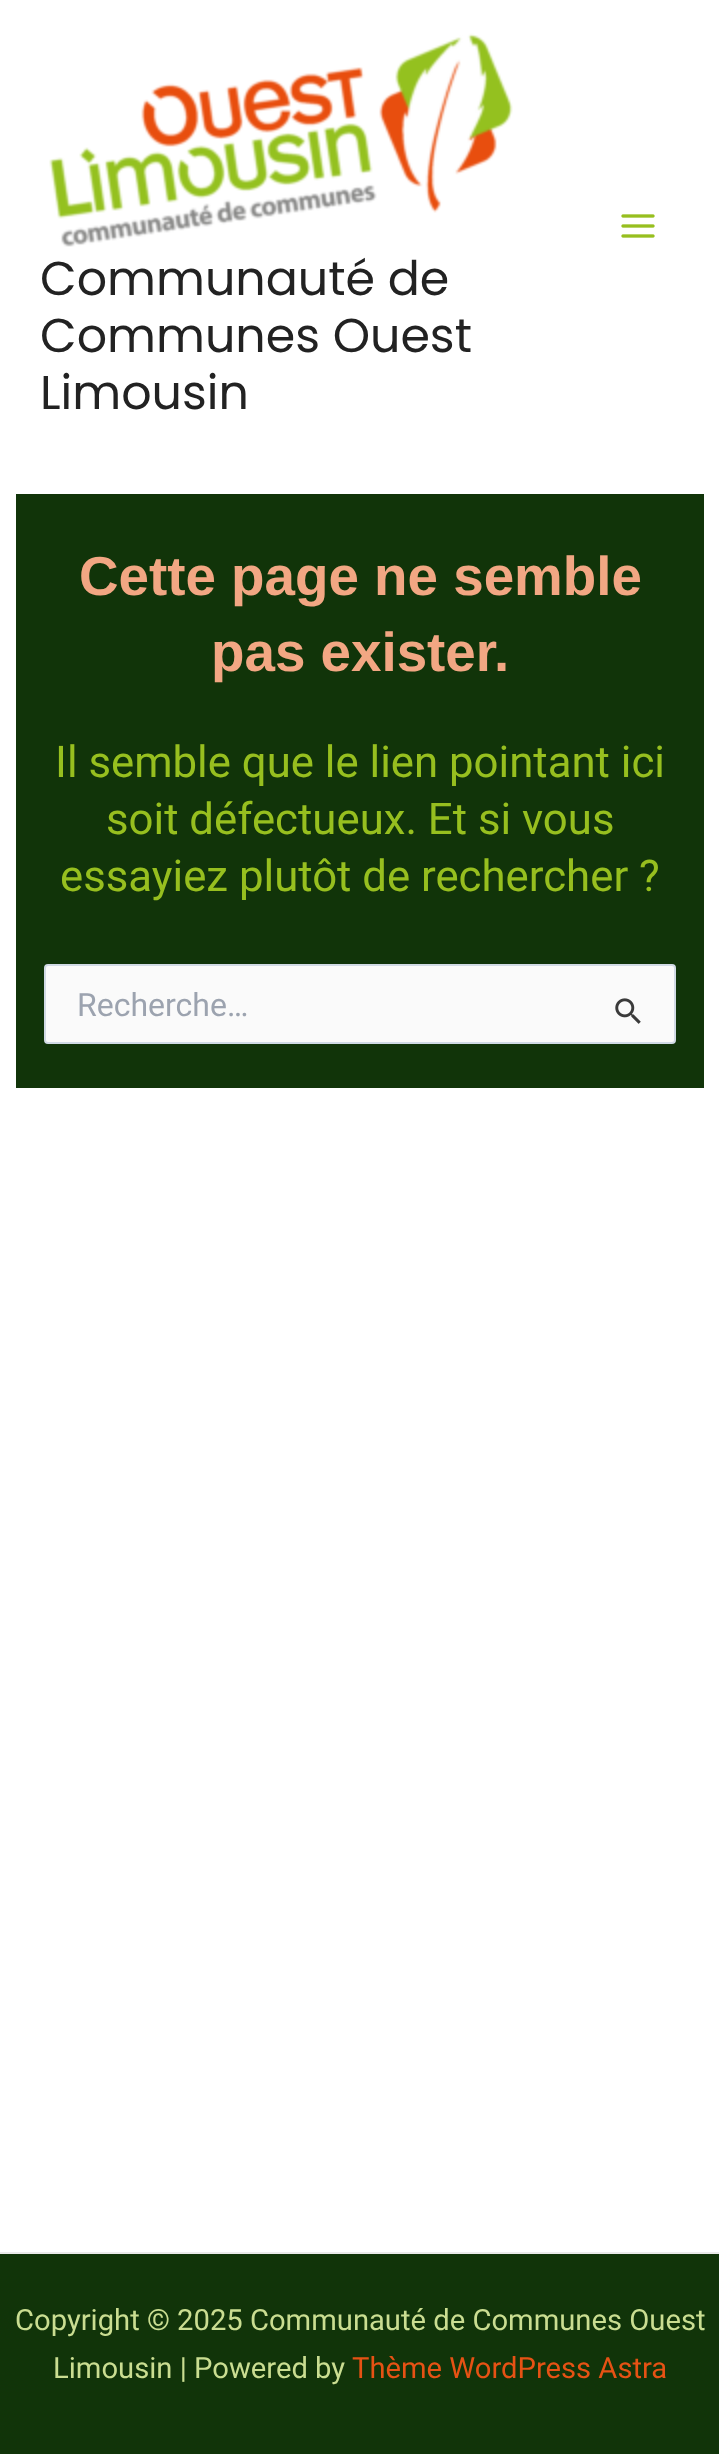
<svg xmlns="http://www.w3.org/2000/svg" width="719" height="2454">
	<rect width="100%" height="100%" fill="#FFFFFF" />
	<image x="621" y="214" width="34" height="24" href="assets/img1.png" />
	<image x="49" y="33" width="464" height="214" href="assets/img2.png" />
	<g font-family="Poppins" font-size="47.5" fill="#222222">
		<text x="40" y="295">Communauté de</text>
		<text x="40" y="352">Communes Ouest</text>
		<text x="40" y="409">Limousin</text>
	</g>
	<rect x="16" y="494" width="688" height="594" fill="#113409" />
	<g font-family="Liberation Sans" font-size="54.75" font-weight="700" fill="#F2A783">
		<text x="79" y="595">Cette page ne semble</text>
		<text x="211" y="671">pas exister.</text>
	</g>
	<g font-family="Roboto" font-size="43.75" fill="#97BF1F">
		<text x="55" y="777">Il semble que le lien pointant ici</text>
		<text x="106" y="834">soit défectueux. Et si vous</text>
		<text x="60" y="891">essayiez plutôt de rechercher ?</text>
	</g>
	<rect x="45" y="965" width="630" height="78" rx="3" fill="#FAFAFA" stroke="#D1DAE5" stroke-width="2" />
	<text x="77" y="1016" font-family="Roboto" font-size="32" fill="#9CA3AF">Recherche…</text>
	<image x="615" y="998" width="26" height="26" href="assets/img3.png" />
	<rect x="0" y="2254" width="719" height="200" fill="#113409" />
	<rect x="0" y="2252" width="719" height="2" fill="#EAEAEA" />
	<g font-family="Roboto" font-size="29.2" fill="#CADD91">
		<text x="15" y="2330">Copyright © 2025 Communauté de Communes Ouest</text>
		<text x="53" y="2378">Limousin | Powered by</text>
	</g>
	<text x="352" y="2378" font-family="Roboto" font-size="29.2" fill="#E65214">Thème WordPress Astra</text>
</svg>
